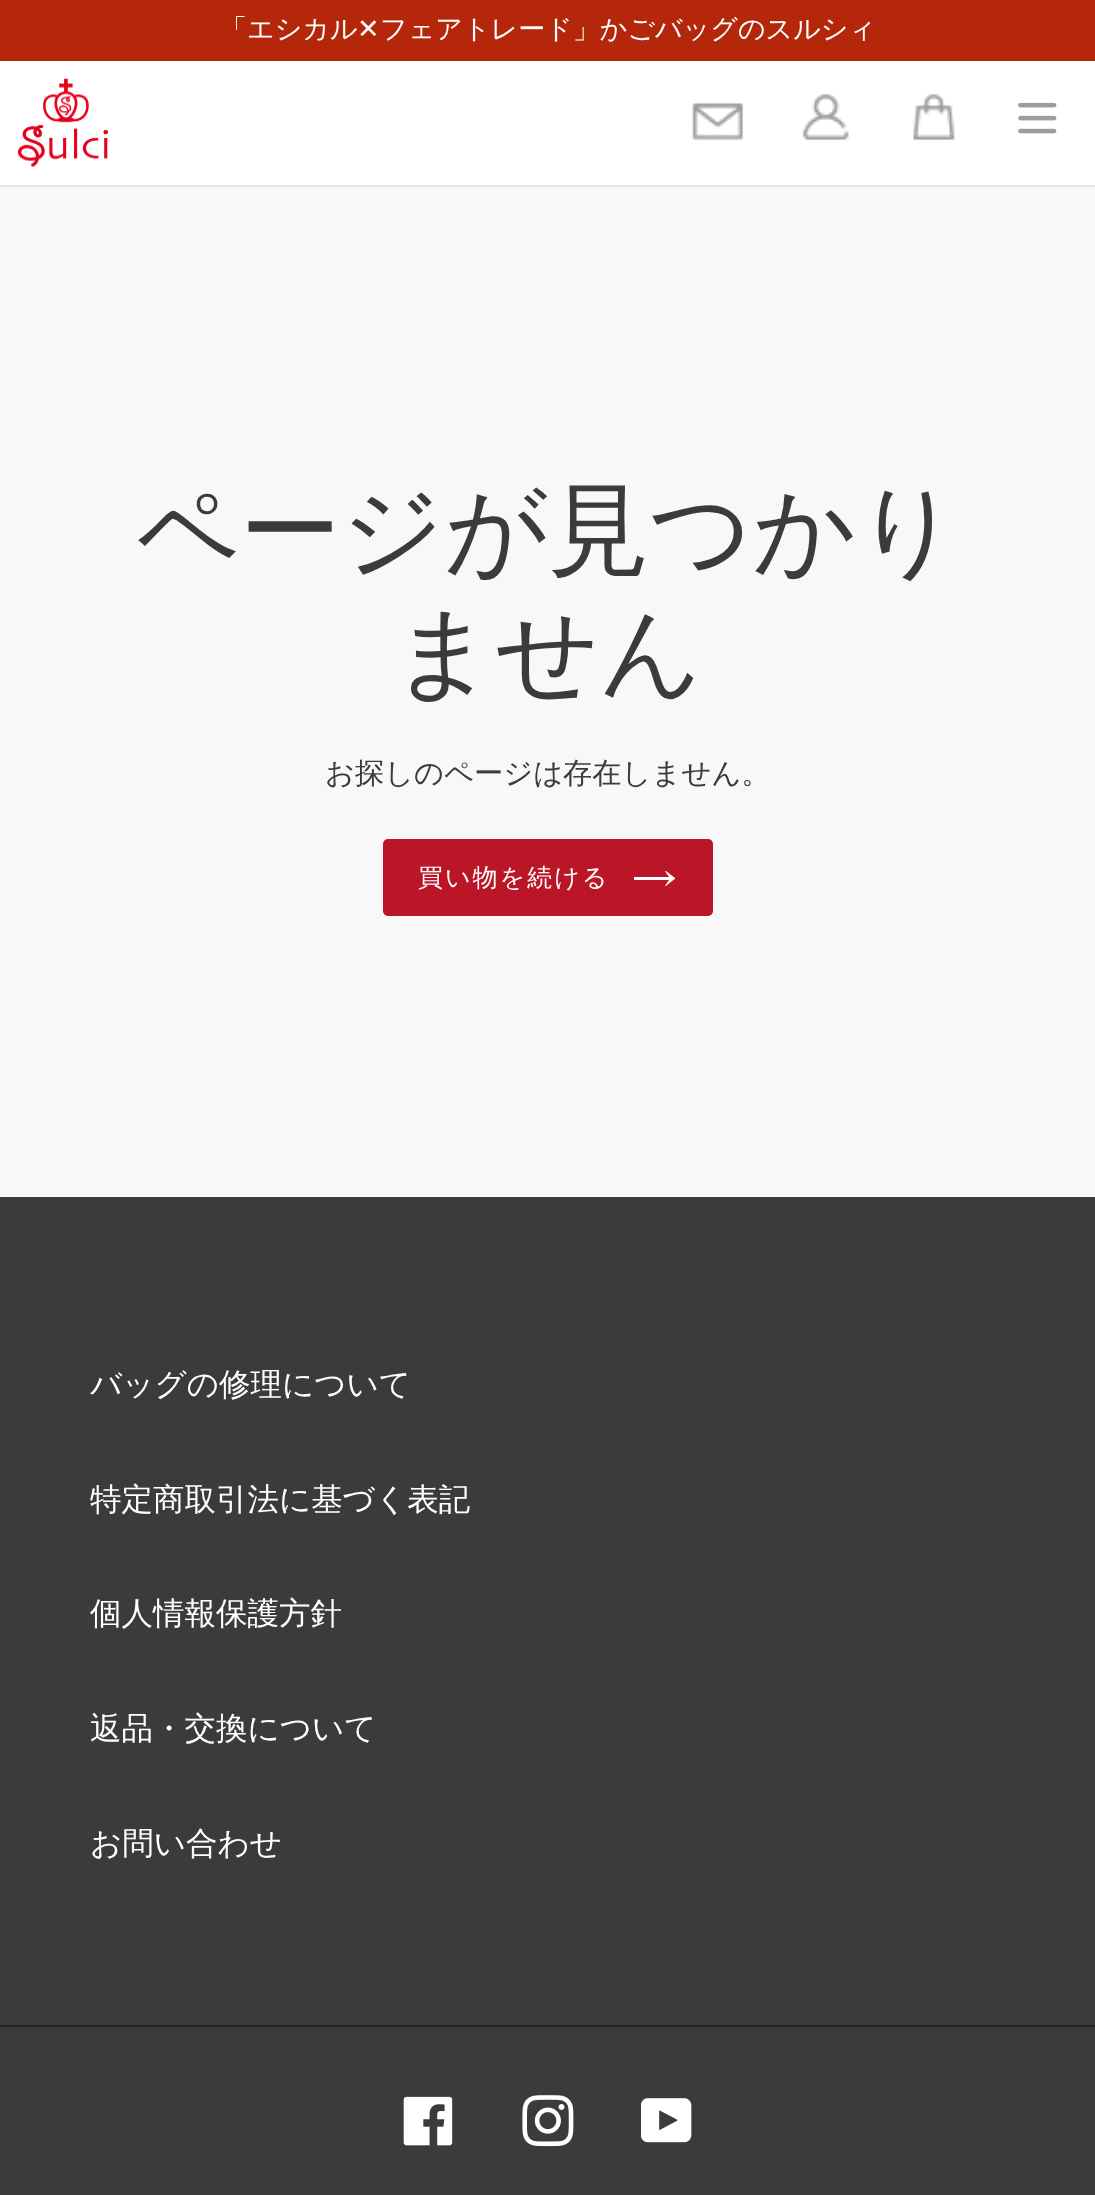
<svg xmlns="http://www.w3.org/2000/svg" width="1095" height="2195">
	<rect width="100%" height="100%" fill="#F8F8F8" />
	<rect x="0" y="0" width="1095" height="61" fill="#B4270A" />
	<text x="220" y="38" font-family="WenQuanYi Zen Hei" font-size="27" font-weight="500" fill="#FFFFFF">「エシカル</text>
	<text x="357" y="38" font-family="DejaVu Sans" font-size="27" fill="#FFFFFF">✕</text>
	<text x="380" y="38" font-family="WenQuanYi Zen Hei" font-size="27" font-weight="500" fill="#FFFFFF">フェアトレード」かごバッグのスルシィ</text>
	<rect x="0" y="61" width="1095" height="124" fill="#FFFFFF" />
	<rect x="0" y="185" width="1095" height="2" fill="#E4E4E4" />
	<image x="18" y="78" width="90" height="89" href="assets/img1.png" />
	<image x="692" y="103" width="52" height="38" href="assets/img2.png" />
	<image x="802" y="94" width="47" height="47" href="assets/img3.png" />
	<image x="913" y="94" width="42" height="47" href="assets/img4.png" />
	<image x="1018" y="102" width="39" height="32" href="assets/img5.png" />
	<g font-family="WenQuanYi Zen Hei" font-size="101.25" font-weight="500" fill="#3B3B3B">
		<text x="136" y="565">ページが見つかり</text>
		<text x="392" y="687">ません</text>
	</g>
	<text x="325" y="783" font-family="WenQuanYi Zen Hei" font-size="29.25" font-weight="500" fill="#3B3B3B">お探しのページは存在しません。</text>
	<rect x="383" y="839" width="330" height="77" rx="5" fill="#BA1628" />
	<text x="418" y="886" font-family="WenQuanYi Zen Hei" font-size="25" font-weight="500" letter-spacing="2" fill="#FFFFFF">買い物を続ける</text>
	<path d="M666 871C669 873 672 876 675 878V879C672 881 669 883 666 886H665L669 880H634V877H669L665 871Z" fill="#FFFFFF" fill-rule="evenodd" />
	<rect x="0" y="1197" width="1095" height="998" fill="#3B3B3B" />
	<g font-family="WenQuanYi Zen Hei" font-size="31.5" font-weight="500" fill="#FFFFFF">
		<text x="90" y="1395">バッグの修理について</text>
		<text x="90" y="1510">特定商取引法に基づく表記</text>
		<text x="90" y="1624">個人情報保護方針</text>
		<text x="90" y="1739">返品・交換について</text>
		<text x="90" y="1854">お問い合わせ</text>
	</g>
	<rect x="0" y="2025" width="1095" height="2" fill="#222222" />
	<image x="403" y="2096" width="50" height="50" href="assets/img6.png" />
	<image x="522" y="2095" width="52" height="52" href="assets/img7.png" />
	<image x="641" y="2098" width="51" height="45" href="assets/img8.png" />
</svg>
